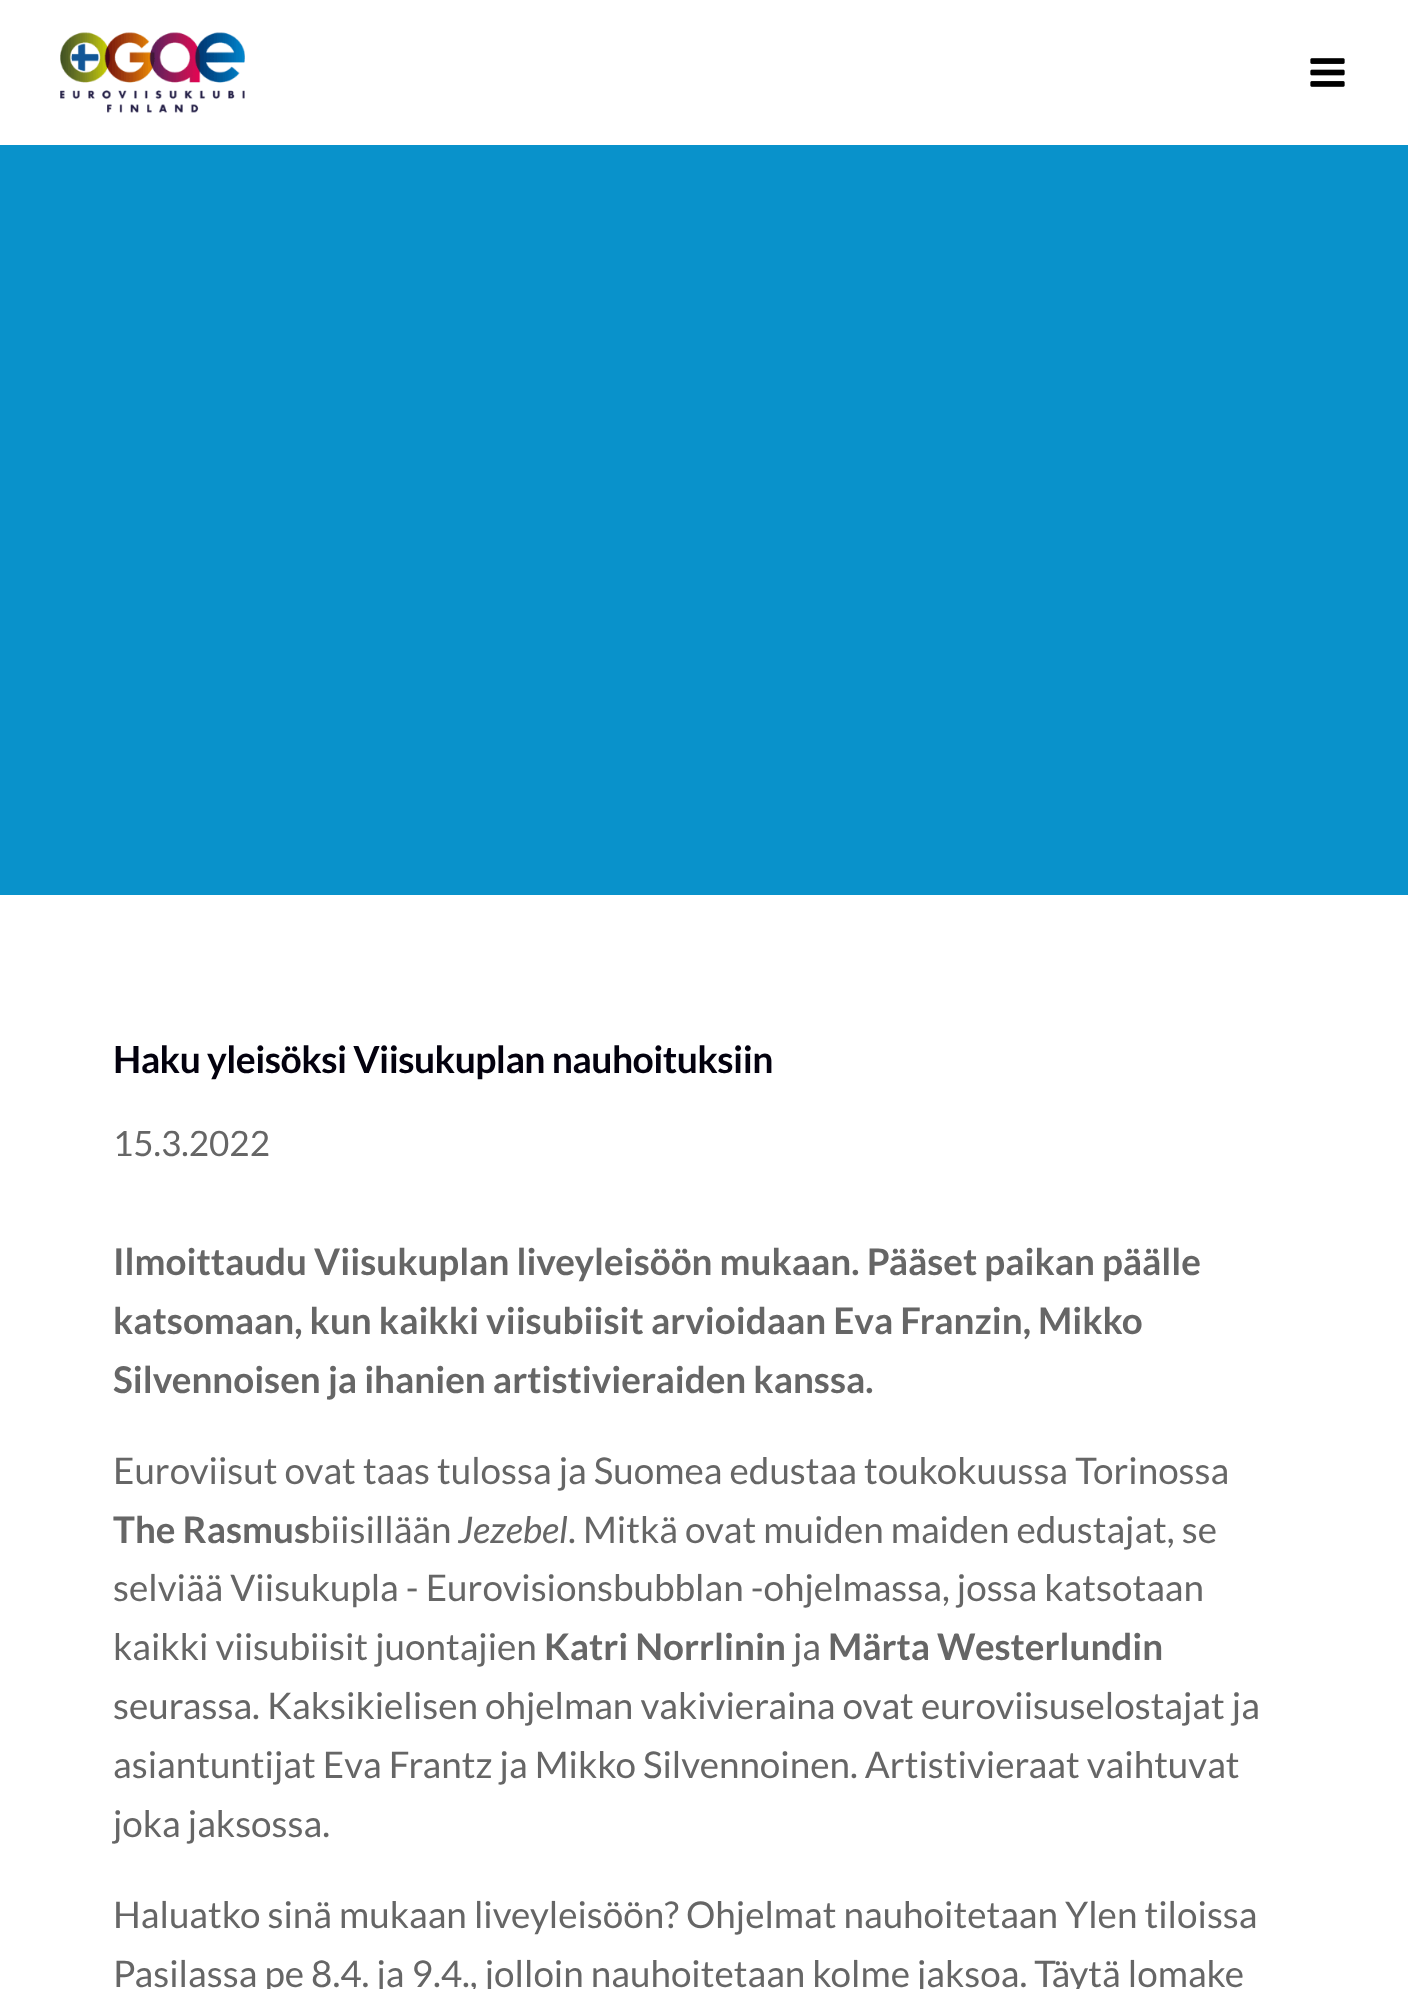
<svg xmlns="http://www.w3.org/2000/svg" width="1408" height="1989">
	<rect width="100%" height="100%" fill="#FFFFFF" />
	<image x="60" y="32" width="185" height="81" href="assets/img1.png" />
	<image x="1310" y="58" width="35" height="29" href="assets/img2.png" />
	<rect x="0" y="145" width="1408" height="750" fill="#0992CB" />
	<text x="113" y="1073" font-family="Lato" font-size="37.3" font-weight="700" letter-spacing="-0.55" fill="#03010E">Haku yleisöksi Viisukuplan nauhoituksiin</text>
	<text x="113" y="1156" font-family="Lato" font-size="35" fill="#666666">15.3.2022</text>
	<g font-family="Lato" font-size="36.8" font-weight="700" fill="#666666">
		<text x="113" y="1275">Ilmoittaudu Viisukuplan liveyleisöön mukaan. Pääset paikan päälle</text>
		<text x="113" y="1334">katsomaan, kun kaikki viisubiisit arvioidaan Eva Franzin, Mikko</text>
		<text x="113" y="1393">Silvennoisen ja ihanien artistivieraiden kanssa.</text>
	</g>
	<text x="113" y="1484" font-family="Lato" font-size="36.8" fill="#666666">Euroviisut ovat taas tulossa ja Suomea edustaa toukokuussa Torinossa</text>
	<text x="113" y="1543" font-family="Lato" font-size="36.8" font-weight="700" fill="#666666">The Rasmus</text>
	<text x="310" y="1543" font-family="Lato" font-size="36.8" fill="#666666">biisillään</text>
	<text x="458" y="1543" font-family="Lato" font-size="36.8" font-style="italic" fill="#666666">Jezebel</text>
	<g font-family="Lato" font-size="36.8" fill="#666666">
		<text x="568" y="1543">. Mitkä ovat muiden maiden edustajat, se</text>
		<text x="113" y="1601">selviää Viisukupla - Eurovisionsbubblan -ohjelmassa, jossa katsotaan</text>
		<text x="113" y="1660">kaikki viisubiisit juontajien</text>
	</g>
	<text x="544" y="1660" font-family="Lato" font-size="36.8" font-weight="700" fill="#666666">Katri Norrlinin</text>
	<text x="793" y="1660" font-family="Lato" font-size="36.8" fill="#666666">ja</text>
	<text x="828" y="1660" font-family="Lato" font-size="36.8" font-weight="700" fill="#666666">Märta Westerlundin</text>
	<g font-family="Lato" font-size="36.8" fill="#666666">
		<text x="113" y="1719">seurassa. Kaksikielisen ohjelman vakivieraina ovat euroviisuselostajat ja</text>
		<text x="113" y="1778">asiantuntijat Eva Frantz ja Mikko Silvennoinen. Artistivieraat vaihtuvat</text>
		<text x="113" y="1837">joka jaksossa.</text>
		<text x="113" y="1928">Haluatko sinä mukaan liveyleisöön? Ohjelmat nauhoitetaan Ylen tiloissa</text>
		<text x="113" y="1987">Pasilassa pe 8.4. ja 9.4., jolloin nauhoitetaan kolme jaksoa. Täytä lomake</text>
	</g>
</svg>
